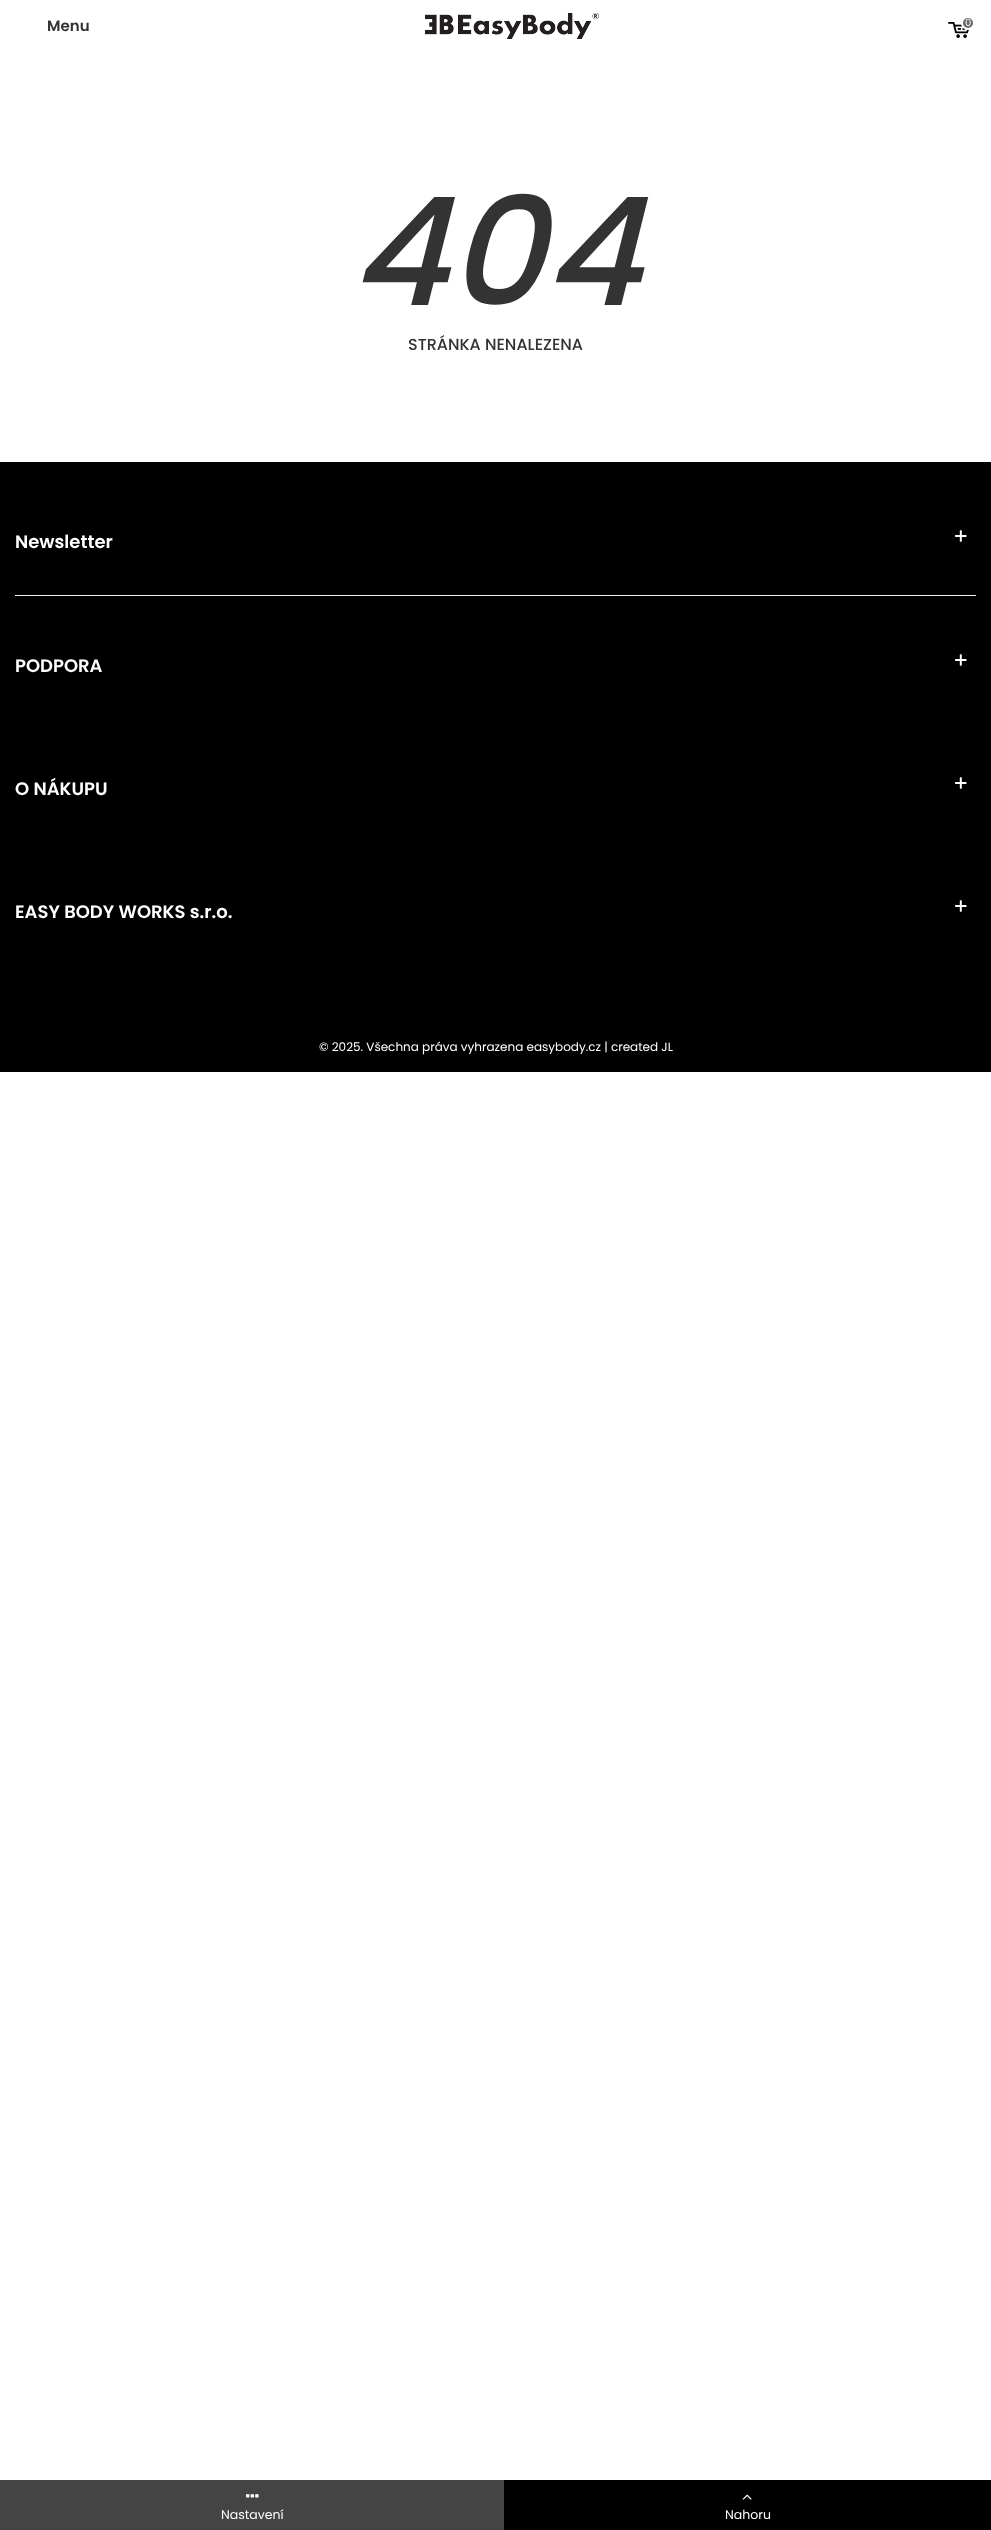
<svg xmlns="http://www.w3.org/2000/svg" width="991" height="2530">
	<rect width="100%" height="100%" fill="#FFFFFF" />
	<text x="47" y="31" font-family="Poppins" font-size="15" font-weight="600" fill="#333333">Menu</text>
	<image x="425" y="12" width="174" height="27" href="assets/img1.png" />
	<image x="948" y="22" width="21" height="16" href="assets/img2.png" />
	<circle cx="968" cy="23" r="6" fill="#666666" stroke="#FFFFFF" stroke-width="2" />
	<text x="965" y="26" font-family="Poppins" font-size="10" fill="#FFFFFF">0</text>
	<text x="350" y="305" font-family="Poppins" font-size="150" font-weight="500" font-style="italic" fill="#333333">404</text>
	<text x="408" y="350" font-family="Poppins" font-size="16" font-weight="500" fill="#333333">STRÁNKA NENALEZENA</text>
	<rect x="0" y="462" width="991" height="610" fill="#000000" />
	<rect x="15" y="595" width="961" height="1" fill="#F2F2F2" />
	<text x="15" y="548" font-family="Poppins" font-size="18" font-weight="600" fill="#FFFFFF">Newsletter</text>
	<image x="955" y="530" width="12" height="12" href="assets/img3.png" />
	<text x="15" y="672" font-family="Poppins" font-size="18" font-weight="600" fill="#FFFFFF">PODPORA</text>
	<image x="955" y="654" width="12" height="12" href="assets/img3.png" />
	<text x="15" y="795" font-family="Poppins" font-size="18" font-weight="600" fill="#FFFFFF">O NÁKUPU</text>
	<image x="955" y="777" width="12" height="12" href="assets/img3.png" />
	<text x="15" y="918" font-family="Poppins" font-size="18" font-weight="600" fill="#FFFFFF">EASY BODY WORKS s.r.o.</text>
	<image x="955" y="900" width="12" height="12" href="assets/img3.png" />
	<text x="319" y="1051" font-family="Poppins" font-size="12" fill="#FFFFFF">© 2025. Všechna práva vyhrazena easybody.cz | created JL</text>
	<rect x="0" y="2480" width="504" height="50" fill="#444444" />
	<image x="246" y="2494" width="13" height="4" href="assets/img4.png" />
	<text x="221" y="2519" font-family="Poppins" font-size="12.5" fill="#FFFFFF">Nastavení</text>
	<rect x="504" y="2480" width="487" height="50" fill="#000000" />
	<image x="742" y="2494" width="10" height="6" href="assets/img5.png" />
	<text x="725" y="2519" font-family="Poppins" font-size="12.5" fill="#FFFFFF">Nahoru</text>
</svg>
